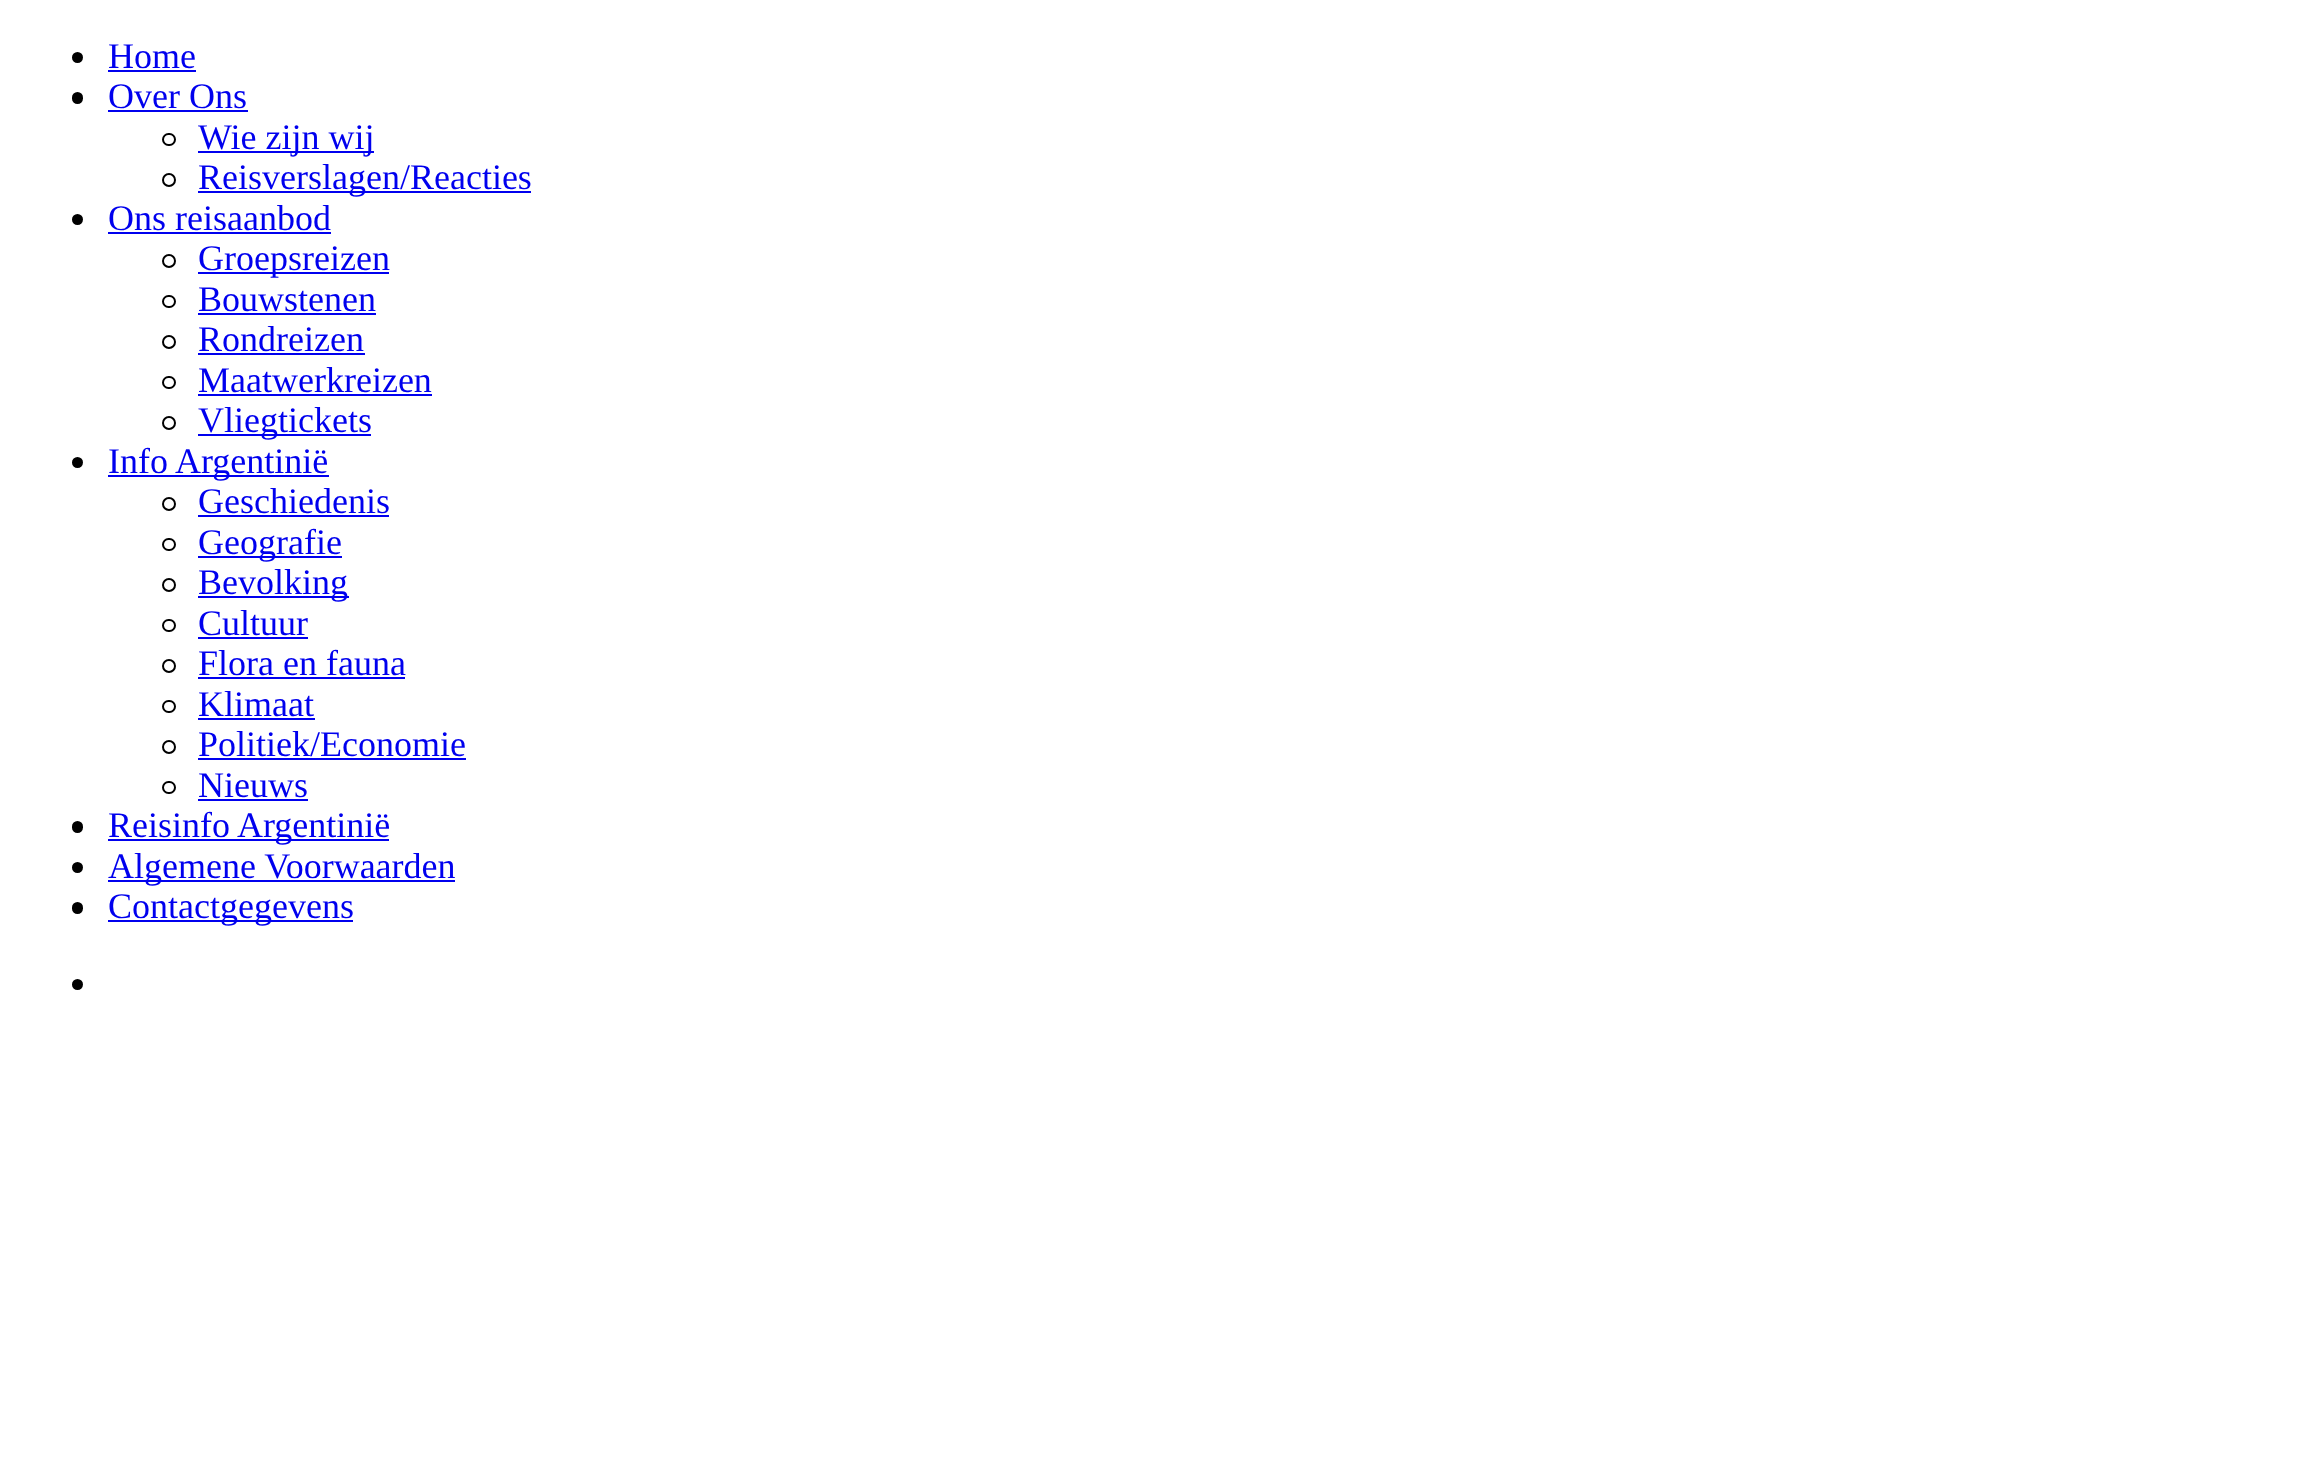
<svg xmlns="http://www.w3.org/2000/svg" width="2308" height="1484">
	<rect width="100%" height="100%" fill="#FFFFFF" />
	<circle cx="77.5" cy="57.5" r="5.5" fill="#000000" />
	<text x="108" y="68" font-family="Liberation Serif" font-size="36" fill="#0000EE">Home</text>
	<rect x="108" y="70" width="88" height="2" fill="#0000EE" />
	<rect x="72" y="92" width="11" height="12" rx="5.5" fill="#000000" />
	<text x="108" y="108" font-family="Liberation Serif" font-size="36" fill="#0000EE">Over Ons</text>
	<rect x="108" y="110" width="140" height="2" fill="#0000EE" />
	<rect x="163" y="134" width="12" height="11" rx="5.5" fill="none" stroke="#000000" stroke-width="2" />
	<rect x="198" y="151" width="176" height="2" fill="#0000EE" />
	<text x="198" y="149" font-family="Liberation Serif" font-size="36" fill="#0000EE">Wie zijn wij</text>
	<circle cx="169" cy="180" r="6" fill="none" stroke="#000000" stroke-width="2" />
	<rect x="198" y="191" width="333" height="2" fill="#0000EE" />
	<text x="198" y="189" font-family="Liberation Serif" font-size="36" fill="#0000EE">Reisverslagen/Reacties</text>
	<circle cx="77.5" cy="219.5" r="5.5" fill="#000000" />
	<text x="108" y="230" font-family="Liberation Serif" font-size="36" fill="#0000EE">Ons reisaanbod</text>
	<rect x="108" y="232" width="223" height="2" fill="#0000EE" />
	<circle cx="169" cy="261" r="6" fill="none" stroke="#000000" stroke-width="2" />
	<rect x="198" y="272" width="191" height="2" fill="#0000EE" />
	<text x="198" y="270" font-family="Liberation Serif" font-size="36" fill="#0000EE">Groepsreizen</text>
	<rect x="163" y="296" width="12" height="11" rx="5.5" fill="none" stroke="#000000" stroke-width="2" />
	<text x="198" y="311" font-family="Liberation Serif" font-size="36" fill="#0000EE">Bouwstenen</text>
	<rect x="198" y="313" width="178" height="2" fill="#0000EE" />
	<circle cx="169" cy="342" r="6" fill="none" stroke="#000000" stroke-width="2" />
	<text x="198" y="351" font-family="Liberation Serif" font-size="36" fill="#0000EE">Rondreizen</text>
	<rect x="198" y="353" width="167" height="2" fill="#0000EE" />
	<rect x="163" y="377" width="12" height="11" rx="5.5" fill="none" stroke="#000000" stroke-width="2" />
	<text x="198" y="392" font-family="Liberation Serif" font-size="36" fill="#0000EE">Maatwerkreizen</text>
	<rect x="198" y="394" width="234" height="2" fill="#0000EE" />
	<circle cx="169" cy="423" r="6" fill="none" stroke="#000000" stroke-width="2" />
	<rect x="198" y="434" width="173" height="2" fill="#0000EE" />
	<text x="198" y="432" font-family="Liberation Serif" font-size="36" fill="#0000EE">Vliegtickets</text>
	<circle cx="77.5" cy="462.5" r="5.5" fill="#000000" />
	<rect x="108" y="475" width="221" height="2" fill="#0000EE" />
	<text x="108" y="473" font-family="Liberation Serif" font-size="36" fill="#0000EE">Info Argentinië</text>
	<circle cx="169" cy="504" r="6" fill="none" stroke="#000000" stroke-width="2" />
	<text x="198" y="513" font-family="Liberation Serif" font-size="36" fill="#0000EE">Geschiedenis</text>
	<rect x="198" y="515" width="191" height="2" fill="#0000EE" />
	<rect x="163" y="539" width="12" height="11" rx="5.5" fill="none" stroke="#000000" stroke-width="2" />
	<rect x="198" y="556" width="144" height="2" fill="#0000EE" />
	<text x="198" y="554" font-family="Liberation Serif" font-size="36" fill="#0000EE">Geografie</text>
	<circle cx="169" cy="585" r="6" fill="none" stroke="#000000" stroke-width="2" />
	<rect x="198" y="596" width="151" height="2" fill="#0000EE" />
	<text x="198" y="594" font-family="Liberation Serif" font-size="36" fill="#0000EE">Bevolking</text>
	<rect x="163" y="620" width="12" height="11" rx="5.5" fill="none" stroke="#000000" stroke-width="2" />
	<text x="198" y="635" font-family="Liberation Serif" font-size="36" fill="#0000EE">Cultuur</text>
	<rect x="198" y="637" width="110" height="2" fill="#0000EE" />
	<circle cx="169" cy="666" r="6" fill="none" stroke="#000000" stroke-width="2" />
	<text x="198" y="675" font-family="Liberation Serif" font-size="36" fill="#0000EE">Flora en fauna</text>
	<rect x="198" y="677" width="207" height="2" fill="#0000EE" />
	<rect x="163" y="701" width="12" height="11" rx="5.5" fill="none" stroke="#000000" stroke-width="2" />
	<text x="198" y="716" font-family="Liberation Serif" font-size="36" fill="#0000EE">Klimaat</text>
	<rect x="198" y="718" width="117" height="2" fill="#0000EE" />
	<circle cx="169" cy="747" r="6" fill="none" stroke="#000000" stroke-width="2" />
	<text x="198" y="756" font-family="Liberation Serif" font-size="36" fill="#0000EE">Politiek/Economie</text>
	<rect x="198" y="758" width="268" height="2" fill="#0000EE" />
	<rect x="163" y="782" width="12" height="11" rx="5.5" fill="none" stroke="#000000" stroke-width="2" />
	<text x="198" y="797" font-family="Liberation Serif" font-size="36" fill="#0000EE">Nieuws</text>
	<rect x="198" y="799" width="110" height="2" fill="#0000EE" />
	<rect x="72" y="821" width="11" height="12" rx="5.5" fill="#000000" />
	<rect x="108" y="839" width="281" height="2" fill="#0000EE" />
	<text x="108" y="837" font-family="Liberation Serif" font-size="36" fill="#0000EE">Reisinfo Argentinië</text>
	<circle cx="77.5" cy="867.5" r="5.5" fill="#000000" />
	<rect x="108" y="880" width="347" height="2" fill="#0000EE" />
	<text x="108" y="878" font-family="Liberation Serif" font-size="36" fill="#0000EE">Algemene Voorwaarden</text>
	<rect x="72" y="902" width="11" height="12" rx="5.5" fill="#000000" />
	<rect x="108" y="920" width="245" height="2" fill="#0000EE" />
	<text x="108" y="918" font-family="Liberation Serif" font-size="36" fill="#0000EE">Contactgegevens</text>
	<circle cx="77.5" cy="984.5" r="5.5" fill="#000000" />
</svg>
